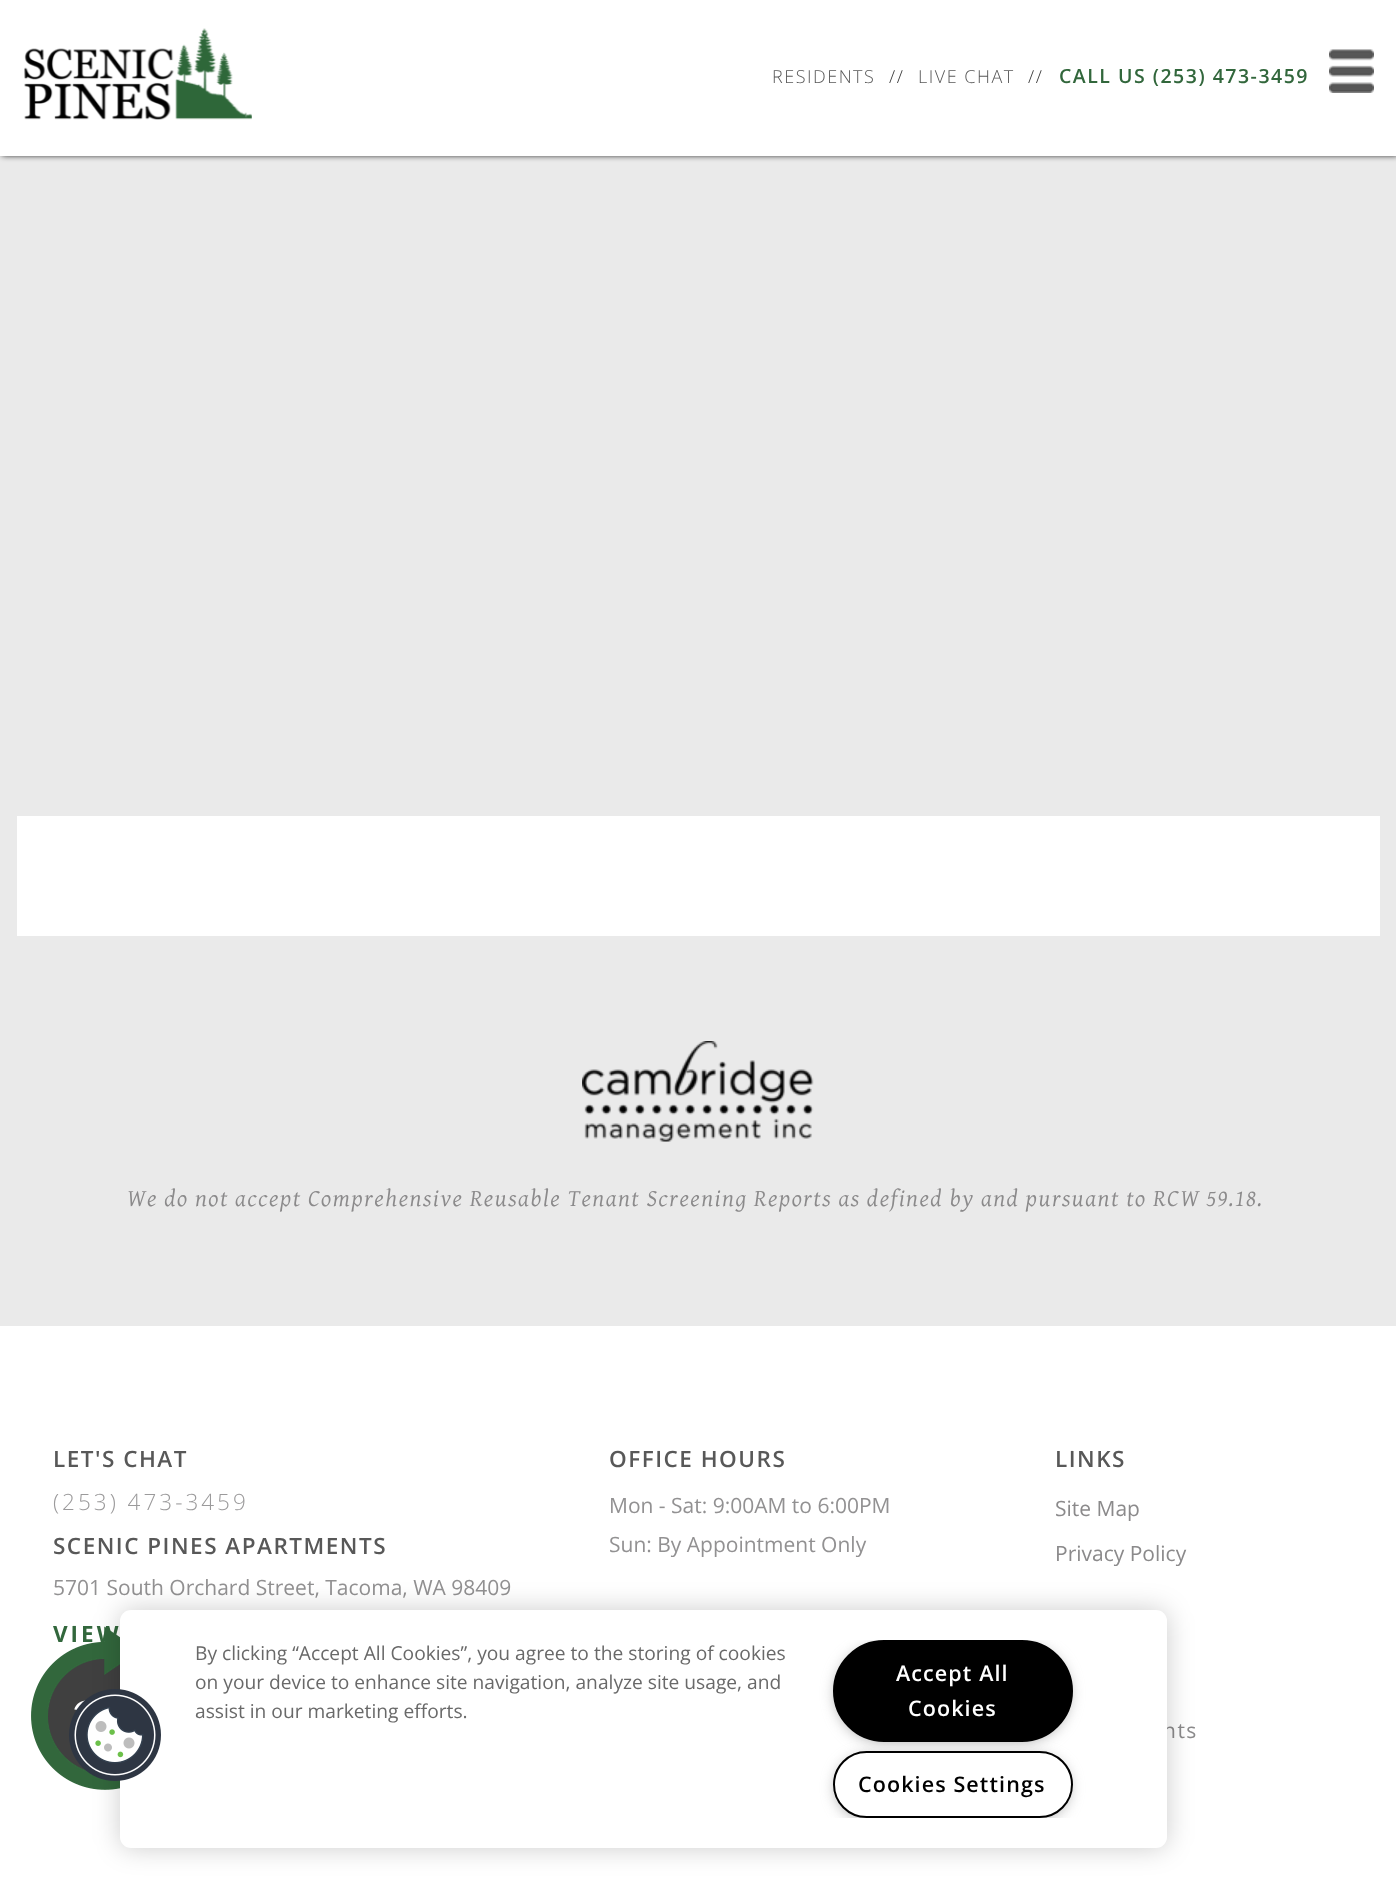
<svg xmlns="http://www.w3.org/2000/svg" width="1396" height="1895">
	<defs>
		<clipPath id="clip1"><rect x="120" y="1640" width="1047" height="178" /></clipPath>
	</defs>
	<rect width="100%" height="100%" fill="#EAEAEA" />
	<rect x="2" y="-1" width="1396" height="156" fill="#000000" filter="blur(3px)" />
	<rect x="0" y="0" width="1396" height="156" fill="#FFFFFF" />
	<image x="24" y="28" width="228" height="92" href="assets/img1.png" />
	<text x="772" y="83" font-family="Open Sans" font-size="18" font-weight="300" letter-spacing="1.5" fill="#585858">RESIDENTS</text>
	<text x="889" y="83" font-family="Open Sans" font-size="18" font-weight="300" letter-spacing="1.5" fill="#333333">//</text>
	<text x="918" y="83" font-family="Open Sans" font-size="18" font-weight="300" letter-spacing="1.5" fill="#585858">LIVE CHAT</text>
	<text x="1028" y="83" font-family="Open Sans" font-size="18" font-weight="300" letter-spacing="1.5" fill="#333333">//</text>
	<text x="1059" y="83" font-family="Open Sans" font-size="19.5" font-weight="600" letter-spacing="1.5" fill="#32673C">CALL US (253) 473-3459</text>
	<image x="1329" y="49" width="45" height="44" href="assets/img2.png" />
	<rect x="17" y="816" width="1363" height="120" fill="#FFFFFF" />
	<image x="582" y="1041" width="232" height="101" href="assets/img3.png" />
	<text x="127" y="1206" font-family="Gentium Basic" font-size="24" font-style="italic" letter-spacing="1.5" fill="#8B8A8B">We do not accept Comprehensive Reusable Tenant Screening Reports as defined by and pursuant to RCW 59.18.</text>
	<rect x="0" y="1326" width="1396" height="569" fill="#FFFFFF" />
	<text x="53" y="1467" font-family="Open Sans" font-size="22.5" font-weight="600" letter-spacing="1.5" fill="#585858">LET'S CHAT</text>
	<text x="53" y="1510" font-family="Open Sans" font-size="22.5" font-weight="300" letter-spacing="3" fill="#9B9A9B">(253) 473-3459</text>
	<text x="53" y="1554" font-family="Open Sans" font-size="22.5" font-weight="600" letter-spacing="1.5" fill="#585858">SCENIC PINES APARTMENTS</text>
	<text x="53" y="1595" font-family="Open Sans" font-size="21" fill="#929192">5701 South Orchard Street, Tacoma, WA 98409</text>
	<text x="53" y="1642" font-family="Open Sans" font-size="22.5" font-weight="700" letter-spacing="3" fill="#32673C">VIEW</text>
	<text x="609" y="1467" font-family="Open Sans" font-size="22.5" font-weight="600" letter-spacing="1.5" fill="#585858">OFFICE HOURS</text>
	<g font-family="Open Sans" font-size="21" fill="#929192">
		<text x="609" y="1513">Mon - Sat: 9:00AM to 6:00PM</text>
		<text x="609" y="1552">Sun: By Appointment Only</text>
	</g>
	<text x="1055" y="1467" font-family="Open Sans" font-size="22.5" font-weight="600" letter-spacing="1.5" fill="#585858">LINKS</text>
	<g font-family="Open Sans" font-size="21" fill="#8B8A8B">
		<text x="1055" y="1516">Site Map</text>
		<text x="1055" y="1561">Privacy Policy</text>
	</g>
	<text x="1163" y="1738" font-family="Open Sans" font-size="21" letter-spacing="1.5" fill="#8B8A8B">nts</text>
	<image x="47" y="1658" width="73" height="114" href="assets/img5.png" />
	<image x="31" y="1626" width="89" height="164" href="assets/img4.png" />
	<rect x="120" y="1610" width="1047" height="238" rx="11" fill="#000000" fill-opacity="0.2" filter="blur(13.5px)" />
	<rect x="120" y="1610" width="1047" height="238" rx="11" fill="#FFFFFF" />
	<image x="69" y="1689" width="92" height="92" href="assets/img6.png" />
	<g font-family="Open Sans" font-size="19.2" fill="#696969">
		<text x="195" y="1660">By clicking “Accept All Cookies”, you agree to the storing of cookies</text>
		<text x="195" y="1689">on your device to enhance site navigation, analyze site usage, and</text>
		<text x="195" y="1718">assist in our marketing efforts.</text>
	</g>
	<g clip-path="url(#clip1)">
		<rect x="837" y="1647" width="231" height="93" rx="46.5" fill="#999999" filter="blur(7.5px)" />
	</g>
	<rect x="834" y="1641" width="238" height="100" rx="50" fill="#000000" stroke="#000000" stroke-width="2" />
	<g font-family="Open Sans" font-size="21.5" font-weight="600" letter-spacing="1.1" fill="#FFFFFF">
		<text x="896" y="1681">Accept All</text>
		<text x="908" y="1716">Cookies</text>
	</g>
	<g clip-path="url(#clip1)">
		<rect x="837" y="1758" width="231" height="59" rx="29.5" fill="#999999" filter="blur(7.5px)" />
	</g>
	<rect x="834" y="1752" width="238" height="65" rx="32.5" fill="#FFFFFF" stroke="#000000" stroke-width="2" />
	<text x="858" y="1792" font-family="Open Sans" font-size="21.5" font-weight="600" letter-spacing="1.1" fill="#000000">Cookies Settings</text>
</svg>
